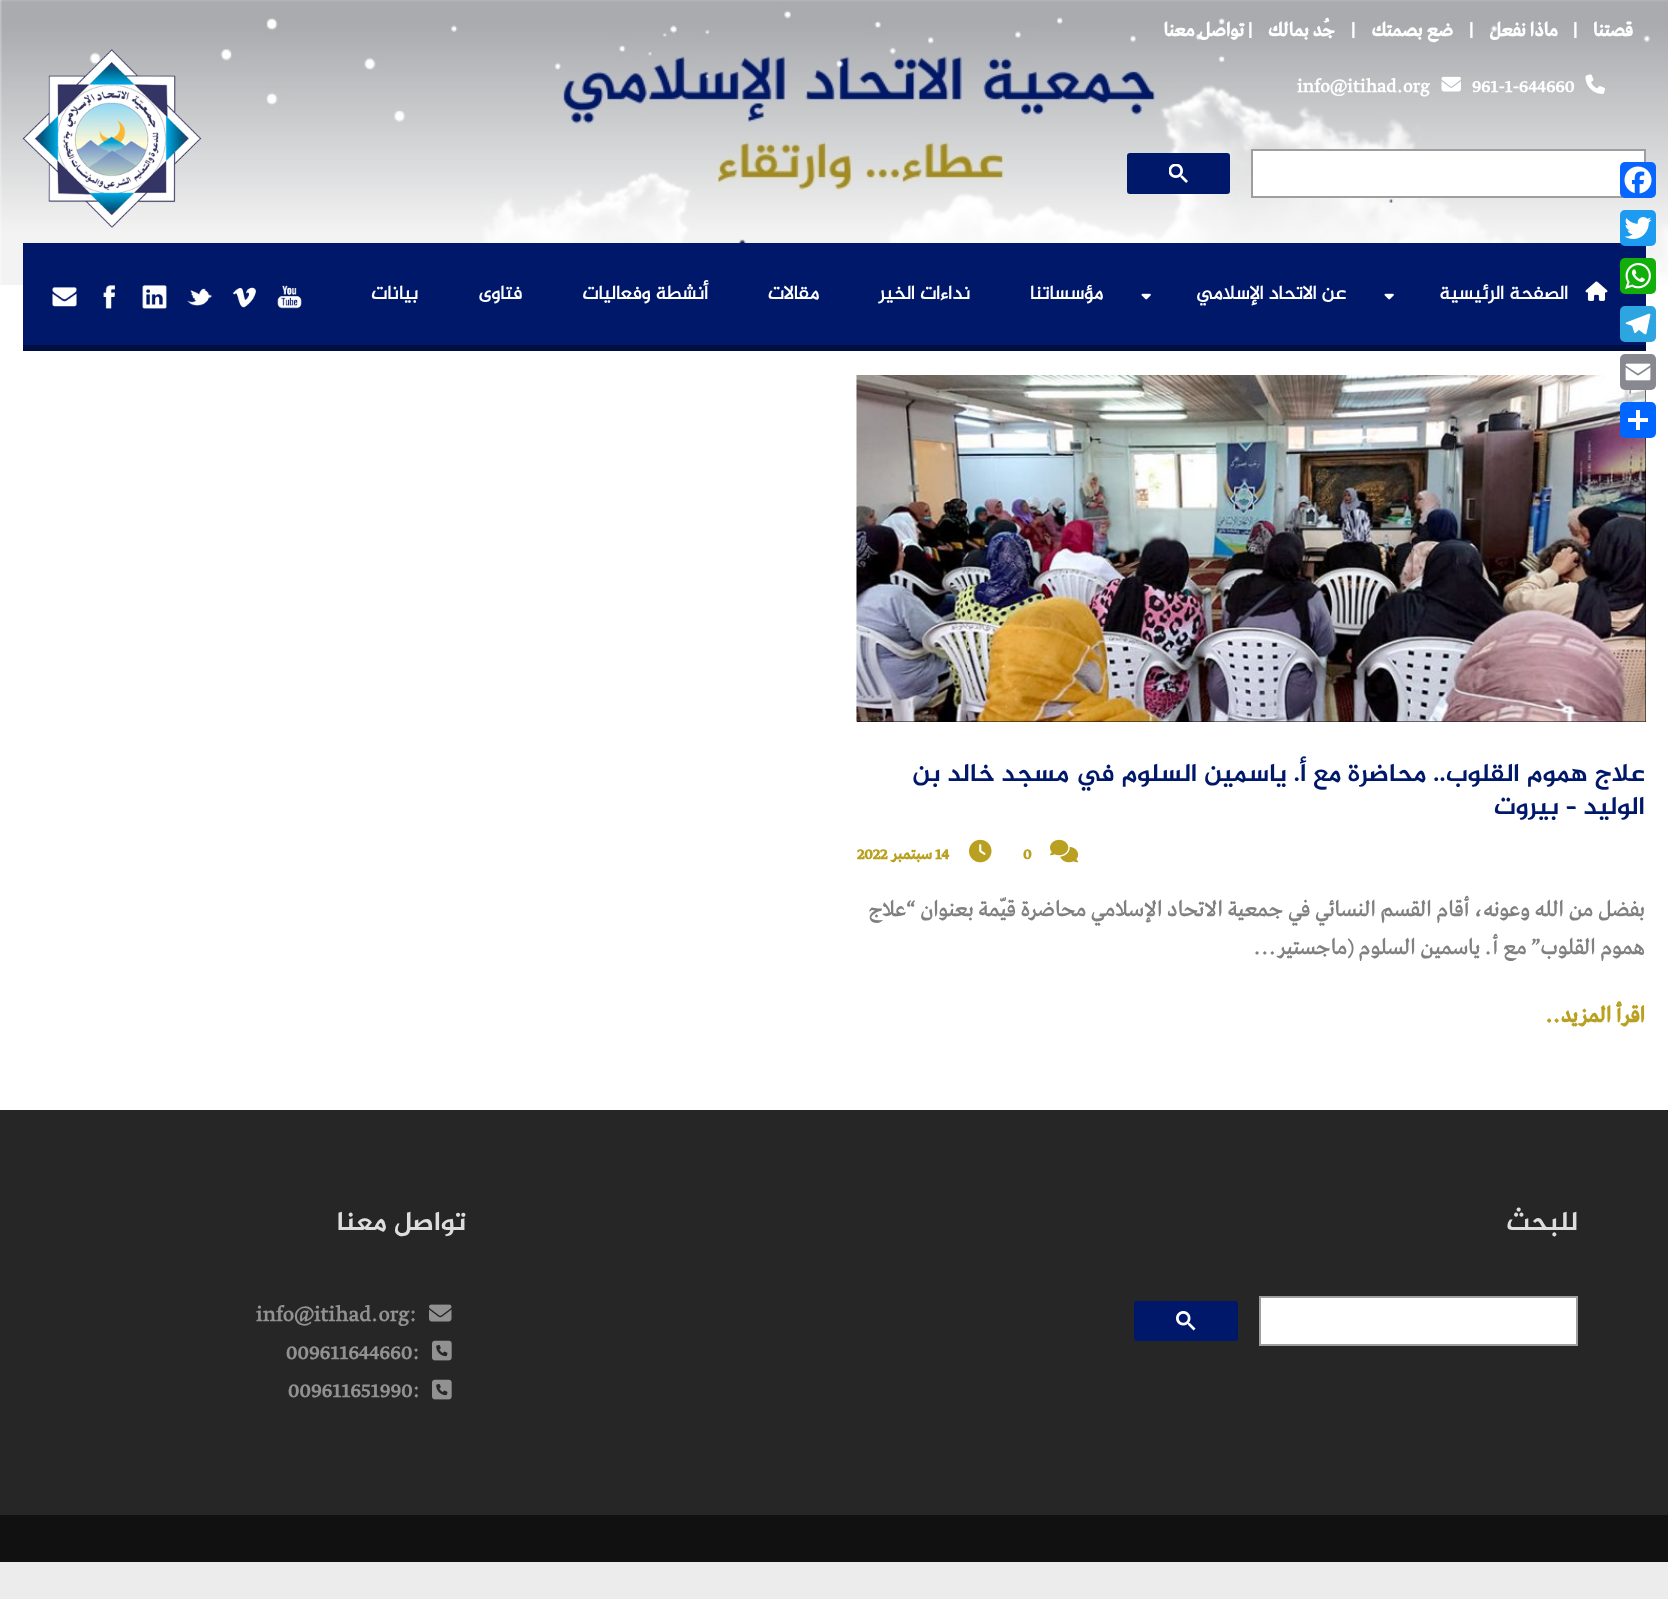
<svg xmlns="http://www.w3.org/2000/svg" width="1668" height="1599">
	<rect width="100%" height="100%" fill="#ECECEC" />
	<rect x="0" y="285" width="1668" height="825" fill="#FFFFFF" />
	<image x="0" y="0" width="1668" height="285" href="assets/img1.png" />
	<text x="1633" y="36" font-family="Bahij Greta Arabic" font-size="19.5" font-weight="700" direction="rtl" fill="#FFFFFF">قصتنا</text>
	<text x="1573" y="36" font-family="Bahij Greta Arabic" font-size="19.5" font-weight="700" fill="#FFFFFF">|</text>
	<text x="1558" y="36" font-family="Bahij Greta Arabic" font-size="19.5" font-weight="700" direction="rtl" fill="#FFFFFF">ماذا نفعل</text>
	<text x="1469" y="36" font-family="Bahij Greta Arabic" font-size="19.5" font-weight="700" fill="#FFFFFF">|</text>
	<text x="1453" y="36" font-family="Bahij Greta Arabic" font-size="19.5" font-weight="700" direction="rtl" fill="#FFFFFF">ضع بصمتك</text>
	<text x="1351" y="36" font-family="Bahij Greta Arabic" font-size="19.5" font-weight="700" fill="#FFFFFF">|</text>
	<text x="1335" y="36" font-family="Bahij Greta Arabic" font-size="19.5" font-weight="700" direction="rtl" fill="#FFFFFF">جُد بمالك</text>
	<text x="1248" y="36" font-family="Bahij Greta Arabic" font-size="19.5" font-weight="700" fill="#FFFFFF">|</text>
	<text x="1244" y="36" font-family="Bahij Greta Arabic" font-size="19.5" font-weight="700" direction="rtl" fill="#FFFFFF">تواصل معنا</text>
	<image x="1585" y="74" width="20" height="20" href="assets/img2.png" />
	<text x="1472" y="92" font-family="Bahij Greta Arabic" font-size="19.5" font-weight="500" fill="#FFFFFF">961-1-644660</text>
	<image x="1441" y="76" width="20" height="16" href="assets/img3.png" />
	<text x="1297" y="92" font-family="Bahij Greta Arabic" font-size="19.5" font-weight="500" fill="#FFFFFF">info@itihad.org</text>
	<image x="22" y="49" width="180" height="179" href="assets/img4.png" />
	<rect x="1252" y="150" width="393" height="47" fill="#FFFFFF" stroke="#9E9E9E" stroke-width="2" />
	<rect x="1128" y="154" width="101" height="39" rx="2" fill="#001869" stroke="#001869" stroke-width="2" />
	<image x="1169" y="164" width="19" height="19" href="assets/img5.png" />
	<rect x="23" y="243" width="1623" height="102" fill="#001869" />
	<rect x="23" y="345" width="1623" height="6" fill="#000F42" />
	<image x="1585" y="281" width="23" height="20" href="assets/img6.png" />
	<text x="1568" y="299" font-family="'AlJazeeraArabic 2'" font-size="19.5" font-weight="700" direction="rtl" fill="#FFFFFF">الصفحة الرئيسية</text>
	<image x="1384" y="293" width="10" height="7" href="assets/img7.png" />
	<text x="1346" y="299" font-family="'AlJazeeraArabic 2'" font-size="19.5" font-weight="700" direction="rtl" fill="#FFFFFF">عن الاتحاد الإسلامي</text>
	<image x="1141" y="293" width="10" height="7" href="assets/img7.png" />
	<g font-family="'AlJazeeraArabic 2'" font-size="19.5" font-weight="700" direction="rtl" fill="#FFFFFF">
		<text x="1103" y="299">مؤسساتنا</text>
		<text x="970" y="299">نداءات الخير</text>
		<text x="819" y="299">مقالات</text>
		<text x="708" y="299">أنشطة وفعاليات</text>
		<text x="522" y="299">فتاوى</text>
		<text x="418" y="299">بيانات</text>
	</g>
	<image x="277" y="285" width="25" height="24" href="assets/img8.png" />
	<image x="232" y="287" width="24" height="21" href="assets/img9.png" />
	<image x="187" y="288" width="25" height="18" href="assets/img10.png" />
	<image x="142" y="285" width="25" height="24" href="assets/img11.png" />
	<image x="103" y="285" width="12" height="24" href="assets/img12.png" />
	<image x="52" y="287" width="25" height="20" href="assets/img13.png" />
	<rect x="857" y="390" width="789" height="332" fill="#000000" />
	<image x="856" y="375" width="790" height="347" href="assets/img14.png" />
	<g font-family="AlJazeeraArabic" font-size="25.5" font-weight="700" direction="rtl" fill="#001869">
		<text x="1645" y="781">علاج هموم القلوب.. محاضرة مع أ. ياسمين السلوم في مسجد خالد بن</text>
		<text x="1645" y="814">الوليد – بيروت</text>
	</g>
	<image x="1050" y="839" width="29" height="24" href="assets/img15.png" />
	<text x="1023" y="859" font-family="Bahij Greta Arabic" font-size="16.5" font-weight="700" fill="#B9A020">0</text>
	<image x="969" y="839" width="23" height="24" href="assets/img16.png" />
	<text x="935" y="859" font-family="Bahij Greta Arabic" font-size="16.5" font-weight="700" fill="#B9A020">14</text>
	<text x="932" y="859" font-family="Bahij Greta Arabic" font-size="16.5" font-weight="700" direction="rtl" fill="#B9A020">سبتمبر</text>
	<text x="857" y="859" font-family="Bahij Greta Arabic" font-size="16.5" font-weight="700" fill="#B9A020">2022</text>
	<g font-family="Bahij Greta Arabic" font-size="22.5" font-weight="500" direction="rtl" fill="#808080">
		<text x="1645" y="916">بفضل من الله وعونه، أقام القسم النسائي في جمعية الاتحاد الإسلامي محاضرة قيّمة بعنوان “علاج</text>
		<text x="1645" y="954">هموم القلوب” مع أ. ياسمين السلوم (ماجستير...</text>
	</g>
	<text x="1645" y="1022" font-family="Bahij Greta Arabic" font-size="22.5" font-weight="700" direction="rtl" fill="#B9A020">اقرأ المزيد..</text>
	<rect x="0" y="1110" width="1668" height="405" fill="#262626" />
	<text x="1578" y="1230" font-family="AlJazeeraArabic" font-size="27" font-weight="700" direction="rtl" fill="#DDDDDD">للبحث</text>
	<rect x="1260" y="1297" width="317" height="48" fill="#FFFFFF" stroke="#9E9E9E" stroke-width="2" />
	<rect x="1135" y="1302" width="102" height="38" rx="2" fill="#001869" stroke="#001869" stroke-width="2" />
	<image x="1176" y="1311" width="20" height="20" href="assets/img17.png" />
	<text x="466" y="1230" font-family="AlJazeeraArabic" font-size="27" font-weight="700" direction="rtl" fill="#DDDDDD">تواصل معنا</text>
	<image x="429" y="1304" width="23" height="18" href="assets/img18.png" />
	<text x="256" y="1321" font-family="Bahij Greta Arabic" font-size="22.5" font-weight="500" fill="#919191">info@itihad.org:</text>
	<image x="432" y="1340" width="20" height="21" href="assets/img19.png" />
	<text x="286" y="1359" font-family="Bahij Greta Arabic" font-size="22.5" font-weight="500" fill="#919191">009611644660:</text>
	<image x="432" y="1379" width="20" height="21" href="assets/img19.png" />
	<text x="288" y="1397" font-family="Bahij Greta Arabic" font-size="22.5" font-weight="500" fill="#919191">009611651990:</text>
	<rect x="0" y="1515" width="1668" height="47" fill="#111111" />
	<rect x="1620" y="162" width="36" height="36" rx="5" fill="#0866FF" />
	<image x="1624" y="166" width="28" height="28" href="assets/img20.png" />
	<rect x="1620" y="210" width="36" height="36" rx="5" fill="#1D9BF0" />
	<image x="1624" y="217" width="28" height="22" href="assets/img21.png" />
	<rect x="1620" y="258" width="36" height="36" rx="5" fill="#12AF0A" />
	<image x="1625" y="263" width="26" height="26" href="assets/img22.png" />
	<rect x="1620" y="306" width="36" height="36" rx="5" fill="#2CA5E0" />
	<image x="1625" y="313" width="26" height="22" href="assets/img23.png" />
	<rect x="1620" y="354" width="36" height="36" rx="5" fill="#888990" />
	<image x="1625" y="363" width="26" height="18" href="assets/img24.png" />
	<rect x="1620" y="402" width="36" height="36" rx="5" fill="#0166FF" />
	<rect x="1636" y="410" width="4" height="20" fill="#FFFFFF" />
	<rect x="1628" y="418" width="20" height="4" fill="#FFFFFF" />
</svg>
